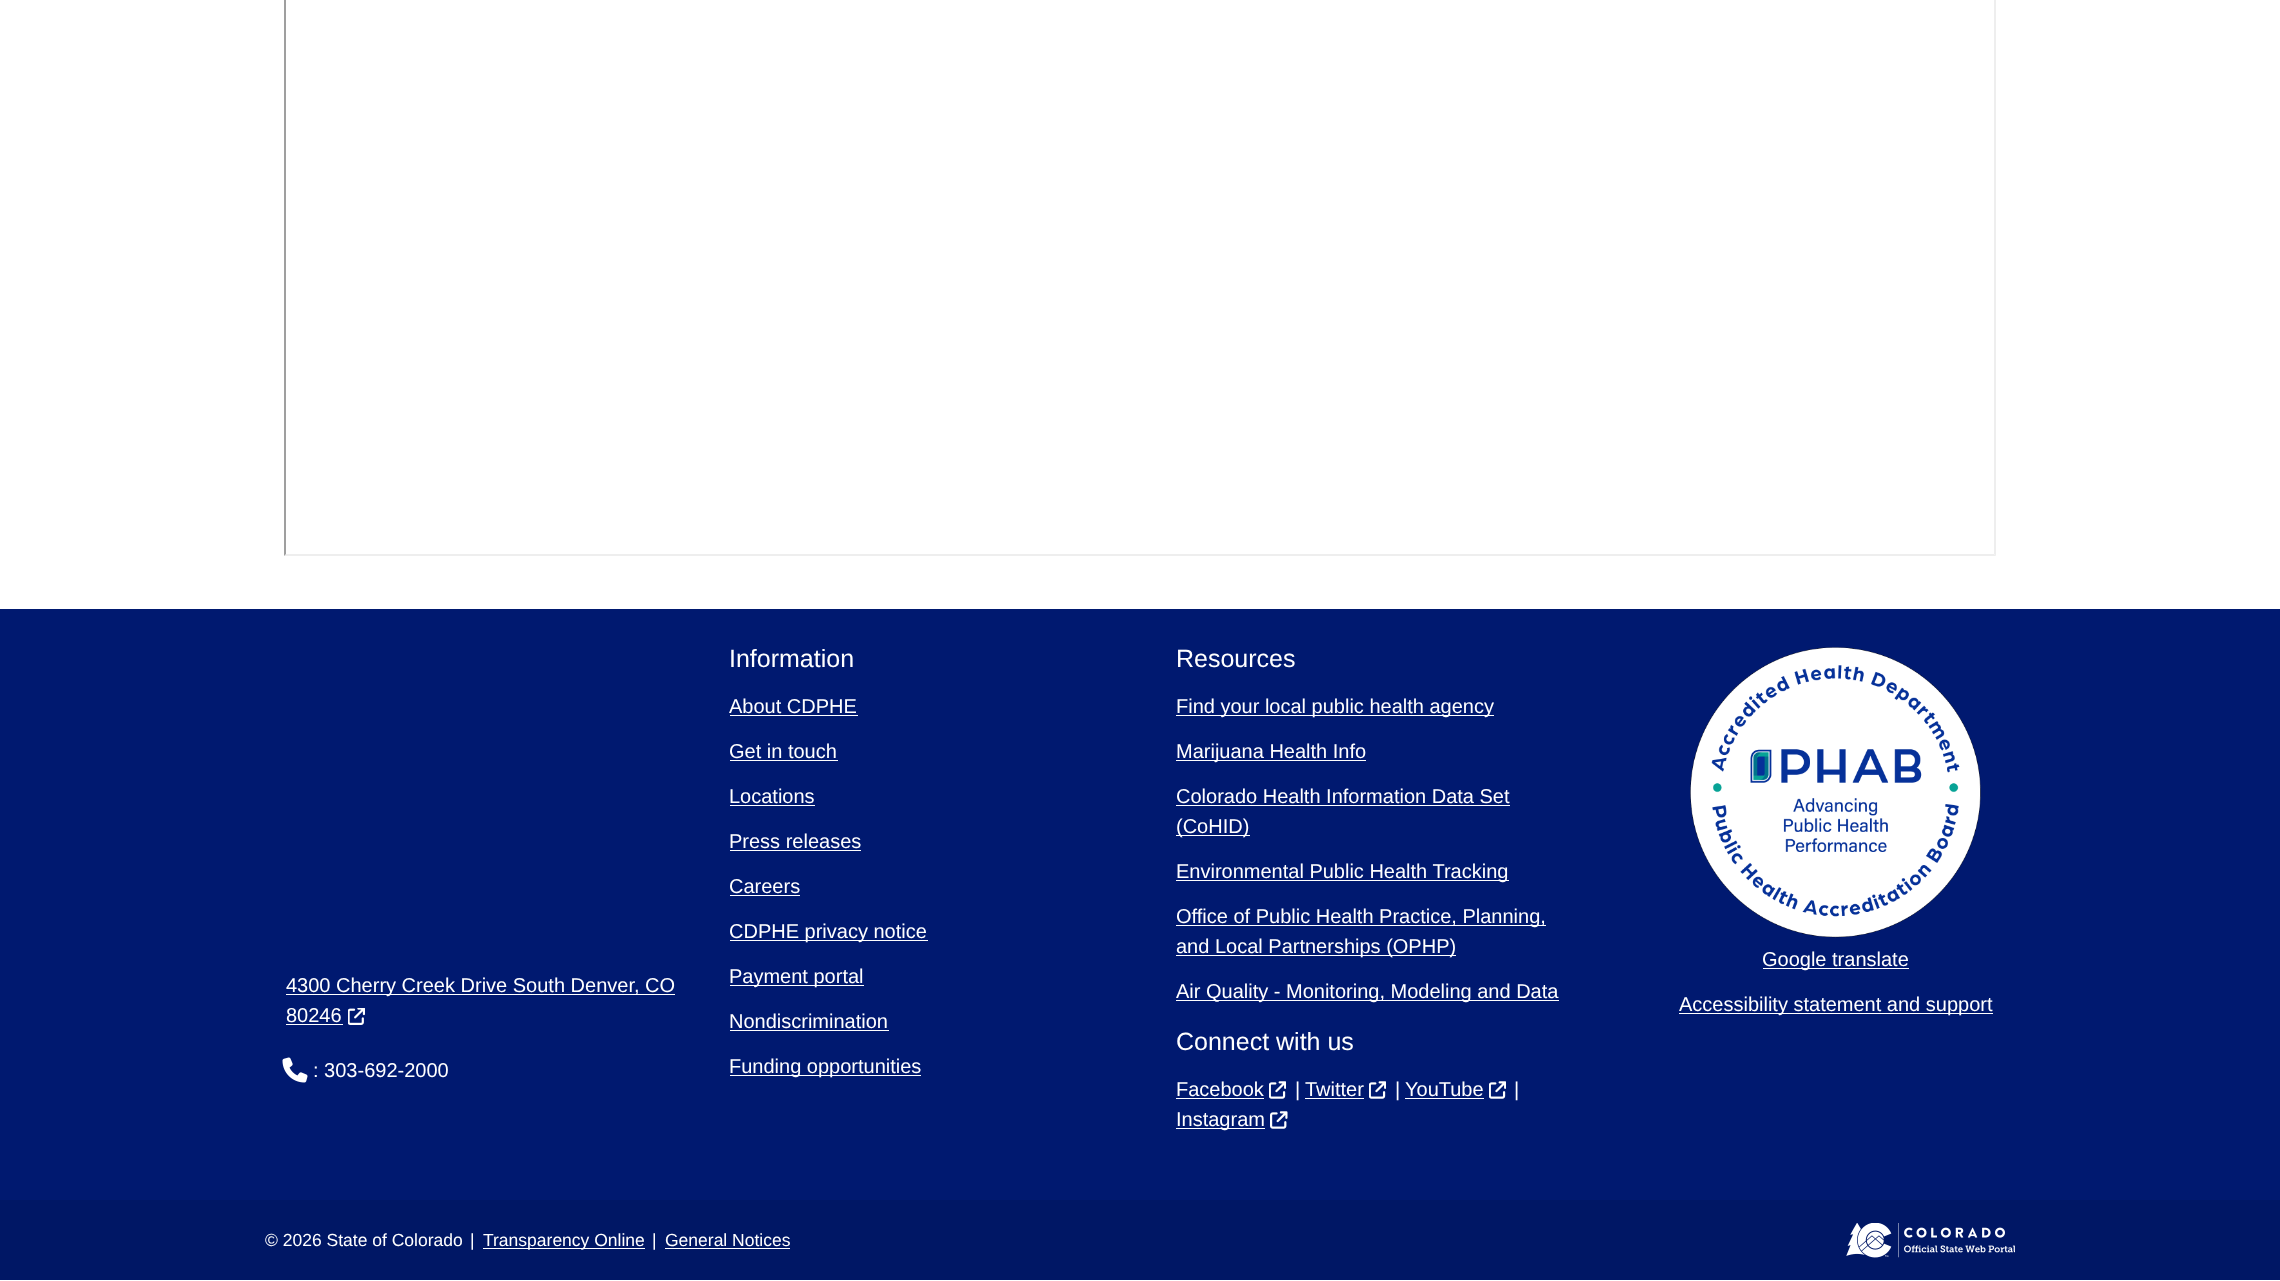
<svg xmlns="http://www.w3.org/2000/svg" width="2280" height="1281">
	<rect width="100%" height="100%" fill="#FFFFFF" />
	<path d="M1996-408V556L1994 554V-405Z" fill="#EEEEEE" />
	<path d="M1996 556H284L286 554H1994Z" fill="#EEEEEE" />
	<path d="M284 556V-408L286-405V554Z" fill="#9F9F9F" />
	<rect x="0" y="609" width="2280" height="591" fill="#001970" />
	<rect x="286" y="994" width="389" height="1" fill="#FFFFFF" />
	<g font-family="Liberation Sans" font-size="20" fill="#FFFFFF">
		<text x="286" y="992">4300 Cherry Creek Drive South Denver, CO</text>
		<text x="286" y="1022">80246</text>
	</g>
	<rect x="286" y="1024" width="57" height="1" fill="#FFFFFF" />
	<image x="348" y="1008" width="17" height="17" href="assets/img1.png" />
	<image x="282" y="1057" width="26" height="26" href="assets/img2.png" />
	<text x="313" y="1077" font-family="Liberation Sans" font-size="20" fill="#FFFFFF">: 303-692-2000</text>
	<text x="729" y="667" font-family="Liberation Sans" font-size="25" fill="#FFFFFF">Information</text>
	<text x="729" y="713" font-family="Liberation Sans" font-size="20" fill="#FFFFFF">About CDPHE</text>
	<rect x="730" y="715" width="128" height="1" fill="#FFFFFF" />
	<text x="729" y="758" font-family="Liberation Sans" font-size="20" fill="#FFFFFF">Get in touch</text>
	<rect x="730" y="760" width="108" height="1" fill="#FFFFFF" />
	<text x="729" y="803" font-family="Liberation Sans" font-size="20" fill="#FFFFFF">Locations</text>
	<rect x="730" y="805" width="85" height="1" fill="#FFFFFF" />
	<text x="729" y="848" font-family="Liberation Sans" font-size="20" fill="#FFFFFF">Press releases</text>
	<rect x="730" y="850" width="131" height="1" fill="#FFFFFF" />
	<text x="729" y="893" font-family="Liberation Sans" font-size="20" fill="#FFFFFF">Careers</text>
	<rect x="730" y="895" width="70" height="1" fill="#FFFFFF" />
	<rect x="730" y="940" width="198" height="1" fill="#FFFFFF" />
	<text x="729" y="938" font-family="Liberation Sans" font-size="20" fill="#FFFFFF">CDPHE privacy notice</text>
	<rect x="730" y="985" width="134" height="1" fill="#FFFFFF" />
	<g font-family="Liberation Sans" font-size="20" fill="#FFFFFF">
		<text x="729" y="983">Payment portal</text>
		<text x="729" y="1028">Nondiscrimination</text>
	</g>
	<rect x="730" y="1030" width="159" height="1" fill="#FFFFFF" />
	<rect x="730" y="1075" width="191" height="1" fill="#FFFFFF" />
	<text x="729" y="1073" font-family="Liberation Sans" font-size="20" fill="#FFFFFF">Funding opportunities</text>
	<text x="1176" y="667" font-family="Liberation Sans" font-size="25" fill="#FFFFFF">Resources</text>
	<rect x="1176" y="715" width="318" height="1" fill="#FFFFFF" />
	<text x="1176" y="713" font-family="Liberation Sans" font-size="20" fill="#FFFFFF">Find your local public health agency</text>
	<rect x="1176" y="760" width="190" height="1" fill="#FFFFFF" />
	<g font-family="Liberation Sans" font-size="20" fill="#FFFFFF">
		<text x="1176" y="758">Marijuana Health Info</text>
		<text x="1176" y="803">Colorado Health Information Data Set</text>
	</g>
	<rect x="1176" y="805" width="334" height="1" fill="#FFFFFF" />
	<rect x="1176" y="835" width="74" height="1" fill="#FFFFFF" />
	<text x="1176" y="833" font-family="Liberation Sans" font-size="20" fill="#FFFFFF">(CoHID)</text>
	<rect x="1176" y="880" width="333" height="1" fill="#FFFFFF" />
	<text x="1176" y="878" font-family="Liberation Sans" font-size="20" fill="#FFFFFF">Environmental Public Health Tracking</text>
	<rect x="1176" y="925" width="370" height="1" fill="#FFFFFF" />
	<text x="1176" y="923" font-family="Liberation Sans" font-size="20" fill="#FFFFFF">Office of Public Health Practice, Planning,</text>
	<rect x="1176" y="955" width="280" height="1" fill="#FFFFFF" />
	<text x="1176" y="953" font-family="Liberation Sans" font-size="20" fill="#FFFFFF">and Local Partnerships (OPHP)</text>
	<rect x="1176" y="1000" width="383" height="1" fill="#FFFFFF" />
	<text x="1176" y="998" font-family="Liberation Sans" font-size="20" fill="#FFFFFF">Air Quality - Monitoring, Modeling and Data</text>
	<text x="1176" y="1050" font-family="Liberation Sans" font-size="25" fill="#FFFFFF">Connect with us</text>
	<text x="1176" y="1096" font-family="Liberation Sans" font-size="20" fill="#FFFFFF">Facebook</text>
	<rect x="1176" y="1098" width="88" height="1" fill="#FFFFFF" />
	<image x="1269" y="1081" width="17" height="18" href="assets/img3.png" />
	<g font-family="Liberation Sans" font-size="20" fill="#FFFFFF">
		<text x="1295" y="1096">|</text>
		<text x="1305" y="1096">Twitter</text>
	</g>
	<rect x="1305" y="1098" width="59" height="1" fill="#FFFFFF" />
	<image x="1369" y="1081" width="17" height="18" href="assets/img3.png" />
	<g font-family="Liberation Sans" font-size="20" fill="#FFFFFF">
		<text x="1395" y="1096">|</text>
		<text x="1405" y="1096">YouTube</text>
	</g>
	<rect x="1405" y="1098" width="79" height="1" fill="#FFFFFF" />
	<image x="1489" y="1081" width="17" height="18" href="assets/img3.png" />
	<text x="1514" y="1096" font-family="Liberation Sans" font-size="20" fill="#FFFFFF">|</text>
	<rect x="1176" y="1128" width="89" height="1" fill="#FFFFFF" />
	<text x="1176" y="1126" font-family="Liberation Sans" font-size="20" fill="#FFFFFF">Instagram</text>
	<image x="1270" y="1111" width="18" height="18" href="assets/img4.png" />
	<image x="1690" y="647" width="291" height="291" href="assets/img5.png" />
	<rect x="1763" y="968" width="146" height="1" fill="#FFFFFF" />
	<text x="1762" y="966" font-family="Liberation Sans" font-size="20" fill="#FFFFFF">Google translate</text>
	<rect x="1679" y="1013" width="314" height="1" fill="#FFFFFF" />
	<text x="1679" y="1011" font-family="Liberation Sans" font-size="20" fill="#FFFFFF">Accessibility statement and support</text>
	<rect x="0" y="1200" width="2280" height="80" fill="#001765" />
	<g font-family="Liberation Sans" font-size="17.5" fill="#FFFFFF">
		<text x="265" y="1246">© 2026 State of Colorado</text>
		<text x="470" y="1246">|</text>
	</g>
	<rect x="483" y="1248" width="162" height="1" fill="#FFFFFF" />
	<g font-family="Liberation Sans" font-size="17.5" fill="#FFFFFF">
		<text x="483" y="1246">Transparency Online</text>
		<text x="652" y="1246">|</text>
		<text x="665" y="1246">General Notices</text>
	</g>
	<rect x="665" y="1248" width="125" height="1" fill="#FFFFFF" />
	<image x="1846" y="1223" width="169" height="35" href="assets/img6.png" />
</svg>
